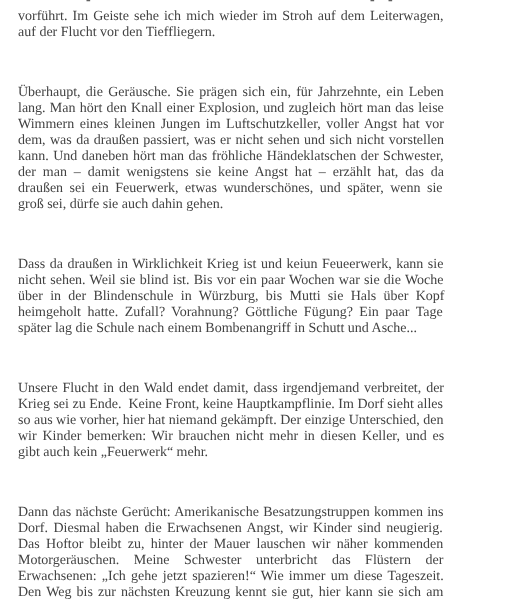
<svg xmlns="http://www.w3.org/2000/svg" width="511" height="605">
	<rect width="100%" height="100%" fill="#FFFFFF" />
	<g font-family="Liberation Serif" font-size="14" fill="#424242">
		<text x="86" y="4" word-spacing="10">-</text>
		<text x="370" y="4" word-spacing="10">-</text>
		<text x="388" y="4" word-spacing="10">-</text>
		<text x="18" y="20" word-spacing="1.6">vorführt. Im Geiste sehe ich mich wieder im Stroh auf dem Leiterwagen,</text>
		<text x="18" y="36">auf der Flucht vor den Tieffliegern.</text>
		<text x="18" y="96" word-spacing="1.75">Überhaupt, die Geräusche. Sie prägen sich ein, für Jahrzehnte, ein Leben</text>
		<text x="18" y="112" word-spacing="0.75">lang. Man hört den Knall einer Explosion, und zugleich hört man das leise</text>
		<text x="18" y="128" word-spacing="2">Wimmern eines kleinen Jungen im Luftschutzkeller, voller Angst hat vor</text>
		<text x="18" y="144" word-spacing="0.9">dem, was da draußen passiert, was er nicht sehen und sich nicht vorstellen</text>
		<text x="18" y="160" word-spacing="1">kann. Und daneben hört man das fröhliche Händeklatschen der Schwester,</text>
		<text x="18" y="176" word-spacing="3.4">der man – damit wenigstens sie keine Angst hat – erzählt hat, das da</text>
		<text x="18" y="192" word-spacing="3">draußen sei ein Feuerwerk, etwas wunderschönes, und später, wenn sie</text>
		<text x="18" y="208">groß sei, dürfe sie auch dahin gehen.</text>
		<text x="18" y="268" word-spacing="1">Dass da draußen in Wirklichkeit Krieg ist und keiun Feueerwerk, kann sie</text>
		<text x="18" y="284" word-spacing="0.75">nicht sehen. Weil sie blind ist. Bis vor ein paar Wochen war sie die Woche</text>
		<text x="18" y="300" word-spacing="3.75">über in der Blindenschule in Würzburg, bis Mutti sie Hals über Kopf</text>
		<text x="18" y="316" word-spacing="3">heimgeholt hatte. Zufall? Vorahnung? Göttliche Fügung? Ein paar Tage</text>
		<text x="18" y="332">später lag die Schule nach einem Bombenangriff in Schutt und Asche...</text>
		<text x="18" y="392" word-spacing="1.4">Unsere Flucht in den Wald endet damit, dass irgendjemand verbreitet, der</text>
		<text x="18" y="408" xml:space="preserve">Krieg sei zu Ende.  Keine Front, keine Hauptkampflinie. Im Dorf sieht alles</text>
		<text x="18" y="424">so aus wie vorher, hier hat niemand gekämpft. Der einzige Unterschied, den</text>
		<text x="18" y="440" word-spacing="2.25">wir Kinder bemerken: Wir brauchen nicht mehr in diesen Keller, und es</text>
		<text x="18" y="456">gibt auch kein „Feuerwerk“ mehr.</text>
		<text x="18" y="516" word-spacing="0.75">Dann das nächste Gerücht: Amerikanische Besatzungstruppen kommen ins</text>
		<text x="18" y="532" word-spacing="2">Dorf. Diesmal haben die Erwachsenen Angst, wir Kinder sind neugierig.</text>
		<text x="18" y="548" word-spacing="2.75">Das Hoftor bleibt zu, hinter der Mauer lauschen wir näher kommenden</text>
		<text x="18" y="564" word-spacing="11">Motorgeräuschen. Meine Schwester unterbricht das Flüstern der</text>
		<text x="18" y="580" word-spacing="1.75">Erwachsenen: „Ich gehe jetzt spazieren!“ Wie immer um diese Tageszeit.</text>
		<text x="18" y="596" word-spacing="1.6">Den Weg bis zur nächsten Kreuzung kennt sie gut, hier kann sie sich am</text>
	</g>
</svg>
